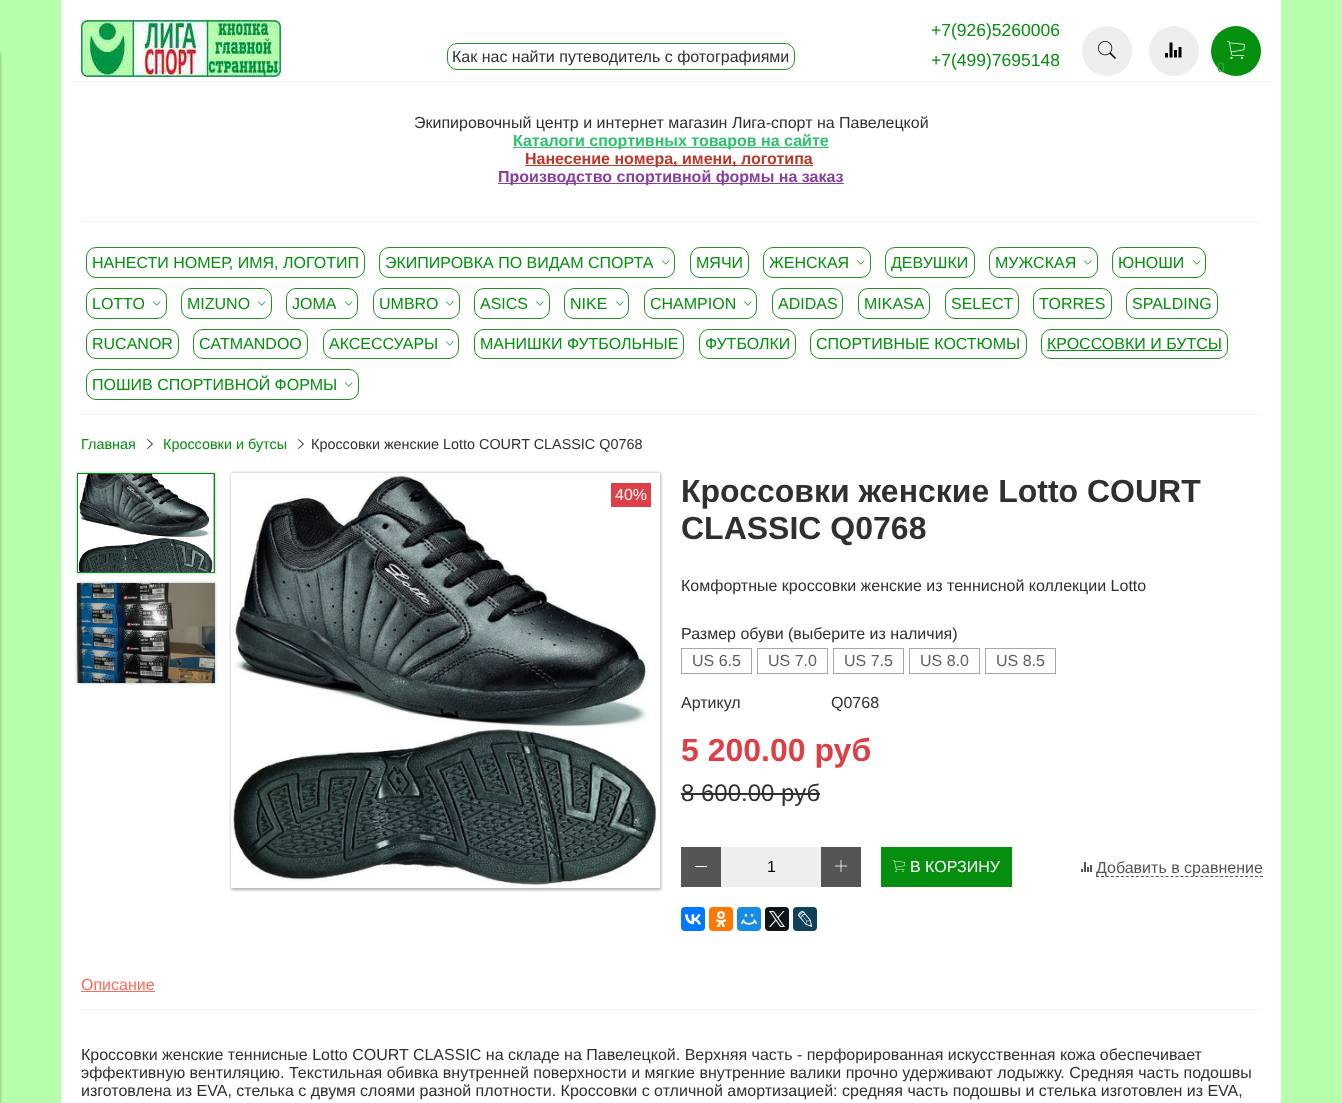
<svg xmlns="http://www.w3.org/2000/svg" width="1342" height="1103">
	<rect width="100%" height="100%" fill="#B8FFAD" />
	<rect x="-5" y="53" width="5" height="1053" fill="#000000" fill-opacity="0.4" filter="blur(1.5px)" />
	<rect x="61" y="0" width="1220" height="1103" fill="#FFFFFF" />
	<image x="81" y="20" width="200" height="57" href="assets/img1.png" />
	<rect x="447.5" y="43.5" width="347" height="26" rx="9.5" fill="none" stroke="#238F24" />
	<text x="452" y="62" font-family="Liberation Sans" font-size="16" fill="#303030">Как нас найти путеводитель с фотографиями</text>
	<g font-family="Liberation Sans" font-size="17.5" fill="#048F0E">
		<text x="931" y="36">+7(926)5260006</text>
		<text x="931" y="66">+7(499)7695148</text>
	</g>
	<circle cx="1107" cy="51" r="25" fill="#EEEEEE" />
	<image x="1098" y="41" width="18" height="18" href="assets/img2.png" />
	<circle cx="1174" cy="51" r="25" fill="#EEEEEE" />
	<image x="1165" y="42" width="17" height="16" href="assets/img3.png" />
	<circle cx="1236" cy="51" r="25" fill="#048F0E" />
	<image x="1227" y="41" width="18" height="18" href="assets/img4.png" />
	<text x="1217" y="72" font-family="Liberation Sans" font-size="14" fill="#3BA743">0</text>
	<rect x="71" y="81" width="1200" height="1" fill="#F2F2F2" />
	<text x="414" y="128" font-family="Liberation Sans" font-size="16" fill="#303030">Экипировочный центр и интернет магазин Лига-спорт на Павелецкой</text>
	<rect x="513" y="147" width="316" height="1" fill="#2DC26B" />
	<text x="513" y="146" font-family="Liberation Sans" font-size="16" font-weight="700" fill="#2DC26B">Каталоги спортивных товаров на сайте</text>
	<rect x="525" y="165" width="288" height="1" fill="#BA372A" />
	<text x="525" y="164" font-family="Liberation Sans" font-size="16" font-weight="700" fill="#BA372A">Нанесение номера, имени, логотипа</text>
	<rect x="498" y="183" width="346" height="1" fill="#843FA1" />
	<text x="498" y="182" font-family="Liberation Sans" font-size="16" font-weight="700" fill="#843FA1">Производство спортивной формы на заказ</text>
	<rect x="81" y="221" width="1180" height="1" fill="#F2F2F2" />
	<rect x="86.5" y="247.5" width="278" height="30" rx="9.5" fill="none" stroke="#238F24" />
	<text x="92" y="268" font-family="Liberation Sans" font-size="16" fill="#048F0E">НАНЕСТИ НОМЕР, ИМЯ, ЛОГОТИП</text>
	<rect x="379.5" y="247.5" width="295" height="30" rx="9.5" fill="none" stroke="#238F24" />
	<text x="385" y="268" font-family="Liberation Sans" font-size="16" fill="#048F0E">ЭКИПИРОВКА ПО ВИДАМ СПОРТА</text>
	<image x="662" y="260" width="8" height="5" href="assets/img5.png" />
	<rect x="690.5" y="247.5" width="58" height="30" rx="9.5" fill="none" stroke="#238F24" />
	<text x="696" y="268" font-family="Liberation Sans" font-size="16" fill="#048F0E">МЯЧИ</text>
	<rect x="763.5" y="247.5" width="107" height="30" rx="9.5" fill="none" stroke="#238F24" />
	<text x="769" y="268" font-family="Liberation Sans" font-size="16" fill="#048F0E">ЖЕНСКАЯ</text>
	<image x="857" y="260" width="8" height="5" href="assets/img5.png" />
	<rect x="885.5" y="247.5" width="89" height="30" rx="9.5" fill="none" stroke="#238F24" />
	<text x="891" y="268" font-family="Liberation Sans" font-size="16" fill="#048F0E">ДЕВУШКИ</text>
	<rect x="989.5" y="247.5" width="108" height="30" rx="9.5" fill="none" stroke="#238F24" />
	<text x="995" y="268" font-family="Liberation Sans" font-size="16" fill="#048F0E">МУЖСКАЯ</text>
	<image x="1084" y="260" width="8" height="5" href="assets/img5.png" />
	<rect x="1112.5" y="247.5" width="93" height="30" rx="9.5" fill="none" stroke="#238F24" />
	<text x="1118" y="268" font-family="Liberation Sans" font-size="16" fill="#048F0E">ЮНОШИ</text>
	<image x="1193" y="260" width="8" height="5" href="assets/img5.png" />
	<rect x="86.5" y="288.5" width="80" height="30" rx="9.5" fill="none" stroke="#238F24" />
	<text x="92" y="309" font-family="Liberation Sans" font-size="16" fill="#048F0E">LOTTO</text>
	<image x="153" y="301" width="8" height="5" href="assets/img5.png" />
	<rect x="181.5" y="288.5" width="90" height="30" rx="9.5" fill="none" stroke="#238F24" />
	<text x="187" y="309" font-family="Liberation Sans" font-size="16" fill="#048F0E">MIZUNO</text>
	<image x="258" y="301" width="8" height="5" href="assets/img5.png" />
	<rect x="286.5" y="288.5" width="71" height="30" rx="9.5" fill="none" stroke="#238F24" />
	<text x="292" y="309" font-family="Liberation Sans" font-size="16" fill="#048F0E">JOMA</text>
	<image x="345" y="301" width="8" height="5" href="assets/img5.png" />
	<rect x="373.5" y="288.5" width="86" height="30" rx="9.5" fill="none" stroke="#238F24" />
	<text x="379" y="309" font-family="Liberation Sans" font-size="16" fill="#048F0E">UMBRO</text>
	<image x="446" y="301" width="8" height="5" href="assets/img5.png" />
	<rect x="474.5" y="288.5" width="75" height="30" rx="9.5" fill="none" stroke="#238F24" />
	<text x="480" y="309" font-family="Liberation Sans" font-size="16" fill="#048F0E">ASICS</text>
	<image x="536" y="301" width="8" height="5" href="assets/img5.png" />
	<rect x="564.5" y="288.5" width="64" height="30" rx="9.5" fill="none" stroke="#238F24" />
	<text x="570" y="309" font-family="Liberation Sans" font-size="16" fill="#048F0E">NIKE</text>
	<image x="616" y="301" width="8" height="5" href="assets/img5.png" />
	<rect x="644.5" y="288.5" width="112" height="30" rx="9.5" fill="none" stroke="#238F24" />
	<text x="650" y="309" font-family="Liberation Sans" font-size="16" fill="#048F0E">CHAMPION</text>
	<image x="744" y="301" width="8" height="5" href="assets/img5.png" />
	<rect x="772.5" y="288.5" width="70" height="30" rx="9.5" fill="none" stroke="#238F24" />
	<text x="778" y="309" font-family="Liberation Sans" font-size="16" fill="#048F0E">ADIDAS</text>
	<rect x="858.5" y="288.5" width="71" height="30" rx="9.5" fill="none" stroke="#238F24" />
	<text x="864" y="309" font-family="Liberation Sans" font-size="16" fill="#048F0E">MIKASA</text>
	<rect x="945.5" y="288.5" width="73" height="30" rx="9.5" fill="none" stroke="#238F24" />
	<text x="951" y="309" font-family="Liberation Sans" font-size="16" fill="#048F0E">SELECT</text>
	<rect x="1033.5" y="288.5" width="78" height="30" rx="9.5" fill="none" stroke="#238F24" />
	<text x="1039" y="309" font-family="Liberation Sans" font-size="16" fill="#048F0E">TORRES</text>
	<rect x="1126.5" y="288.5" width="91" height="30" rx="9.5" fill="none" stroke="#238F24" />
	<text x="1132" y="309" font-family="Liberation Sans" font-size="16" fill="#048F0E">SPALDING</text>
	<rect x="86.5" y="329.5" width="92" height="29" rx="9.5" fill="none" stroke="#238F24" />
	<text x="92" y="349" font-family="Liberation Sans" font-size="16" fill="#048F0E">RUCANOR</text>
	<rect x="193.5" y="329.5" width="114" height="29" rx="9.5" fill="none" stroke="#238F24" />
	<text x="199" y="349" font-family="Liberation Sans" font-size="16" fill="#048F0E">CATMANDOO</text>
	<rect x="323.5" y="329.5" width="135" height="29" rx="9.5" fill="none" stroke="#238F24" />
	<text x="329" y="349" font-family="Liberation Sans" font-size="16" fill="#048F0E">АКСЕССУАРЫ</text>
	<image x="446" y="341" width="8" height="5" href="assets/img5.png" />
	<rect x="474.5" y="329.5" width="209" height="29" rx="9.5" fill="none" stroke="#238F24" />
	<text x="480" y="349" font-family="Liberation Sans" font-size="16" fill="#048F0E">МАНИШКИ ФУТБОЛЬНЫЕ</text>
	<rect x="699.5" y="329.5" width="96" height="29" rx="9.5" fill="none" stroke="#238F24" />
	<text x="705" y="349" font-family="Liberation Sans" font-size="16" fill="#048F0E">ФУТБОЛКИ</text>
	<rect x="810.5" y="329.5" width="216" height="29" rx="9.5" fill="none" stroke="#238F24" />
	<text x="816" y="349" font-family="Liberation Sans" font-size="16" fill="#048F0E">СПОРТИВНЫЕ КОСТЮМЫ</text>
	<rect x="1041.5" y="329.5" width="186" height="29" rx="9.5" fill="none" stroke="#238F24" />
	<text x="1047" y="349" font-family="Liberation Sans" font-size="16" fill="#048F0E">КРОССОВКИ И БУТСЫ</text>
	<rect x="1047" y="350" width="175" height="1" fill="#048F0E" />
	<rect x="86.5" y="369.5" width="272" height="30" rx="9.5" fill="none" stroke="#238F24" />
	<text x="92" y="390" font-family="Liberation Sans" font-size="16" fill="#048F0E">ПОШИВ СПОРТИВНОЙ ФОРМЫ</text>
	<image x="345" y="382" width="8" height="5" href="assets/img5.png" />
	<rect x="81" y="414" width="1180" height="1" fill="#F2F2F2" />
	<text x="81" y="449" font-family="Liberation Sans" font-size="14.4" fill="#048F0E">Главная</text>
	<image x="147" y="439" width="6" height="10" href="assets/img6.png" />
	<text x="163" y="449" font-family="Liberation Sans" font-size="14.4" fill="#048F0E">Кроссовки и бутсы</text>
	<image x="298" y="439" width="6" height="10" href="assets/img6.png" />
	<text x="311" y="449" font-family="Liberation Sans" font-size="14.4" fill="#303030">Кроссовки женские Lotto COURT CLASSIC Q0768</text>
	<rect x="77" y="473" width="138" height="100" fill="#000000" fill-opacity="0.3" filter="blur(1.5px)" />
	<rect x="77.5" y="473.5" width="137" height="99" fill="none" stroke="#048F0E" />
	<image x="78" y="474" width="135" height="98" href="assets/img7.png" />
	<rect x="77" y="583" width="138" height="100" fill="#000000" fill-opacity="0.3" filter="blur(1.5px)" />
	<image x="77" y="583" width="138" height="100" href="assets/img8.png" />
	<rect x="231" y="473" width="430" height="417" fill="#000000" fill-opacity="0.3" filter="blur(1.5px)" />
	<image x="231" y="473" width="429" height="415" href="assets/img9.png" />
	<rect x="611" y="483" width="40" height="24" fill="#DD3F46" />
	<text x="615" y="500" font-family="Liberation Sans" font-size="16" fill="#FFFFFF">40%</text>
	<g font-family="Liberation Sans" font-size="32" font-weight="700" fill="#303030">
		<text x="681" y="502">Кроссовки женские Lotto COURT</text>
		<text x="681" y="539">CLASSIC Q0768</text>
	</g>
	<g font-family="Liberation Sans" font-size="16" fill="#303030">
		<text x="681" y="591">Комфортные кроссовки женские из теннисной коллекции Lotto</text>
		<text x="681" y="639">Размер обуви (выберите из наличия)</text>
	</g>
	<rect x="681.5" y="648.5" width="70" height="25" fill="none" stroke="#A7A7A7" />
	<text x="692" y="666" font-family="Liberation Sans" font-size="16" fill="#605F5F">US 6.5</text>
	<rect x="757.5" y="648.5" width="70" height="25" fill="none" stroke="#A7A7A7" />
	<text x="768" y="666" font-family="Liberation Sans" font-size="16" fill="#605F5F">US 7.0</text>
	<rect x="833.5" y="648.5" width="70" height="25" fill="none" stroke="#A7A7A7" />
	<text x="844" y="666" font-family="Liberation Sans" font-size="16" fill="#605F5F">US 7.5</text>
	<rect x="909.5" y="648.5" width="70" height="25" fill="none" stroke="#A7A7A7" />
	<text x="920" y="666" font-family="Liberation Sans" font-size="16" fill="#605F5F">US 8.0</text>
	<rect x="985.5" y="648.5" width="70" height="25" fill="none" stroke="#A7A7A7" />
	<text x="996" y="666" font-family="Liberation Sans" font-size="16" fill="#605F5F">US 8.5</text>
	<g font-family="Liberation Sans" font-size="16" fill="#303030">
		<text x="681" y="708">Артикул</text>
		<text x="831" y="708">Q0768</text>
	</g>
	<text x="681" y="761" font-family="Liberation Sans" font-size="32" font-weight="700" fill="#DD3F46">5 200.00 руб</text>
	<text x="681" y="801" font-family="Liberation Sans" font-size="24" fill="#303030">8 600.00 руб</text>
	<rect x="681" y="793" width="139" height="2" fill="#303030" />
	<rect x="681" y="847" width="40" height="40" fill="#555555" />
	<rect x="695" y="866" width="12" height="1" fill="#FFFFFF" />
	<rect x="721" y="847" width="100" height="40" fill="#EEEEEE" />
	<text x="767" y="872" font-family="Liberation Sans" font-size="16" fill="#000000">1</text>
	<rect x="821" y="847" width="40" height="40" fill="#555555" />
	<image x="835" y="860" width="12" height="12" href="assets/img10.png" />
	<rect x="881" y="847" width="131" height="40" fill="#048F0E" />
	<image x="893" y="860" width="12" height="12" href="assets/img11.png" />
	<text x="910" y="872" font-family="Liberation Sans" font-size="16" fill="#FFFFFF">В КОРЗИНУ</text>
	<image x="1081" y="862" width="11" height="10" href="assets/img12.png" />
	<path d="M1096 876.5H1263" fill="none" stroke="#555555" stroke-dasharray="3 1.97" />
	<text x="1096" y="873" font-family="Liberation Sans" font-size="16" fill="#555555">Добавить в сравнение</text>
	<rect x="681" y="907" width="24" height="24" rx="4" fill="#0077FF" />
	<image x="685" y="914" width="16" height="11" href="assets/img13.png" />
	<rect x="709" y="907" width="24" height="24" rx="4" fill="#FF7700" />
	<image x="715" y="911" width="12" height="16" href="assets/img14.png" />
	<rect x="737" y="907" width="24" height="24" rx="4" fill="#168DE2" />
	<image x="741" y="914" width="16" height="11" href="assets/img15.png" />
	<rect x="765" y="907" width="24" height="24" rx="4" fill="#0F1419" />
	<image x="769" y="911" width="16" height="16" href="assets/img16.png" />
	<rect x="793" y="907" width="24" height="24" rx="4" fill="#0D425A" />
	<image x="798" y="911" width="15" height="16" href="assets/img17.png" />
	<rect x="81" y="1009" width="1180" height="1" fill="#F2F2F2" />
	<text x="81" y="990" font-family="Liberation Sans" font-size="16" fill="#FF6A59">Описание</text>
	<rect x="81" y="991" width="74" height="1" fill="#FF6A59" />
	<g font-family="Liberation Sans" font-size="16" fill="#303030">
		<text x="81" y="1060">Кроссовки женские теннисные Lotto COURT CLASSIC на складе на Павелецкой. Верхняя часть - перфорированная искусственная кожа обеспечивает</text>
		<text x="81" y="1078">эффективную вентиляцию. Текстильная обивка внутренней поверхности и мягкие внутренние валики прочно удерживают лодыжку. Средняя часть подошвы</text>
		<text x="81" y="1096">изготовлена из EVA, стелька с двумя слоями разной плотности. Кроссовки с отличной амортизацией: средняя часть подошвы и стелька изготовлен из EVA,</text>
	</g>
</svg>
